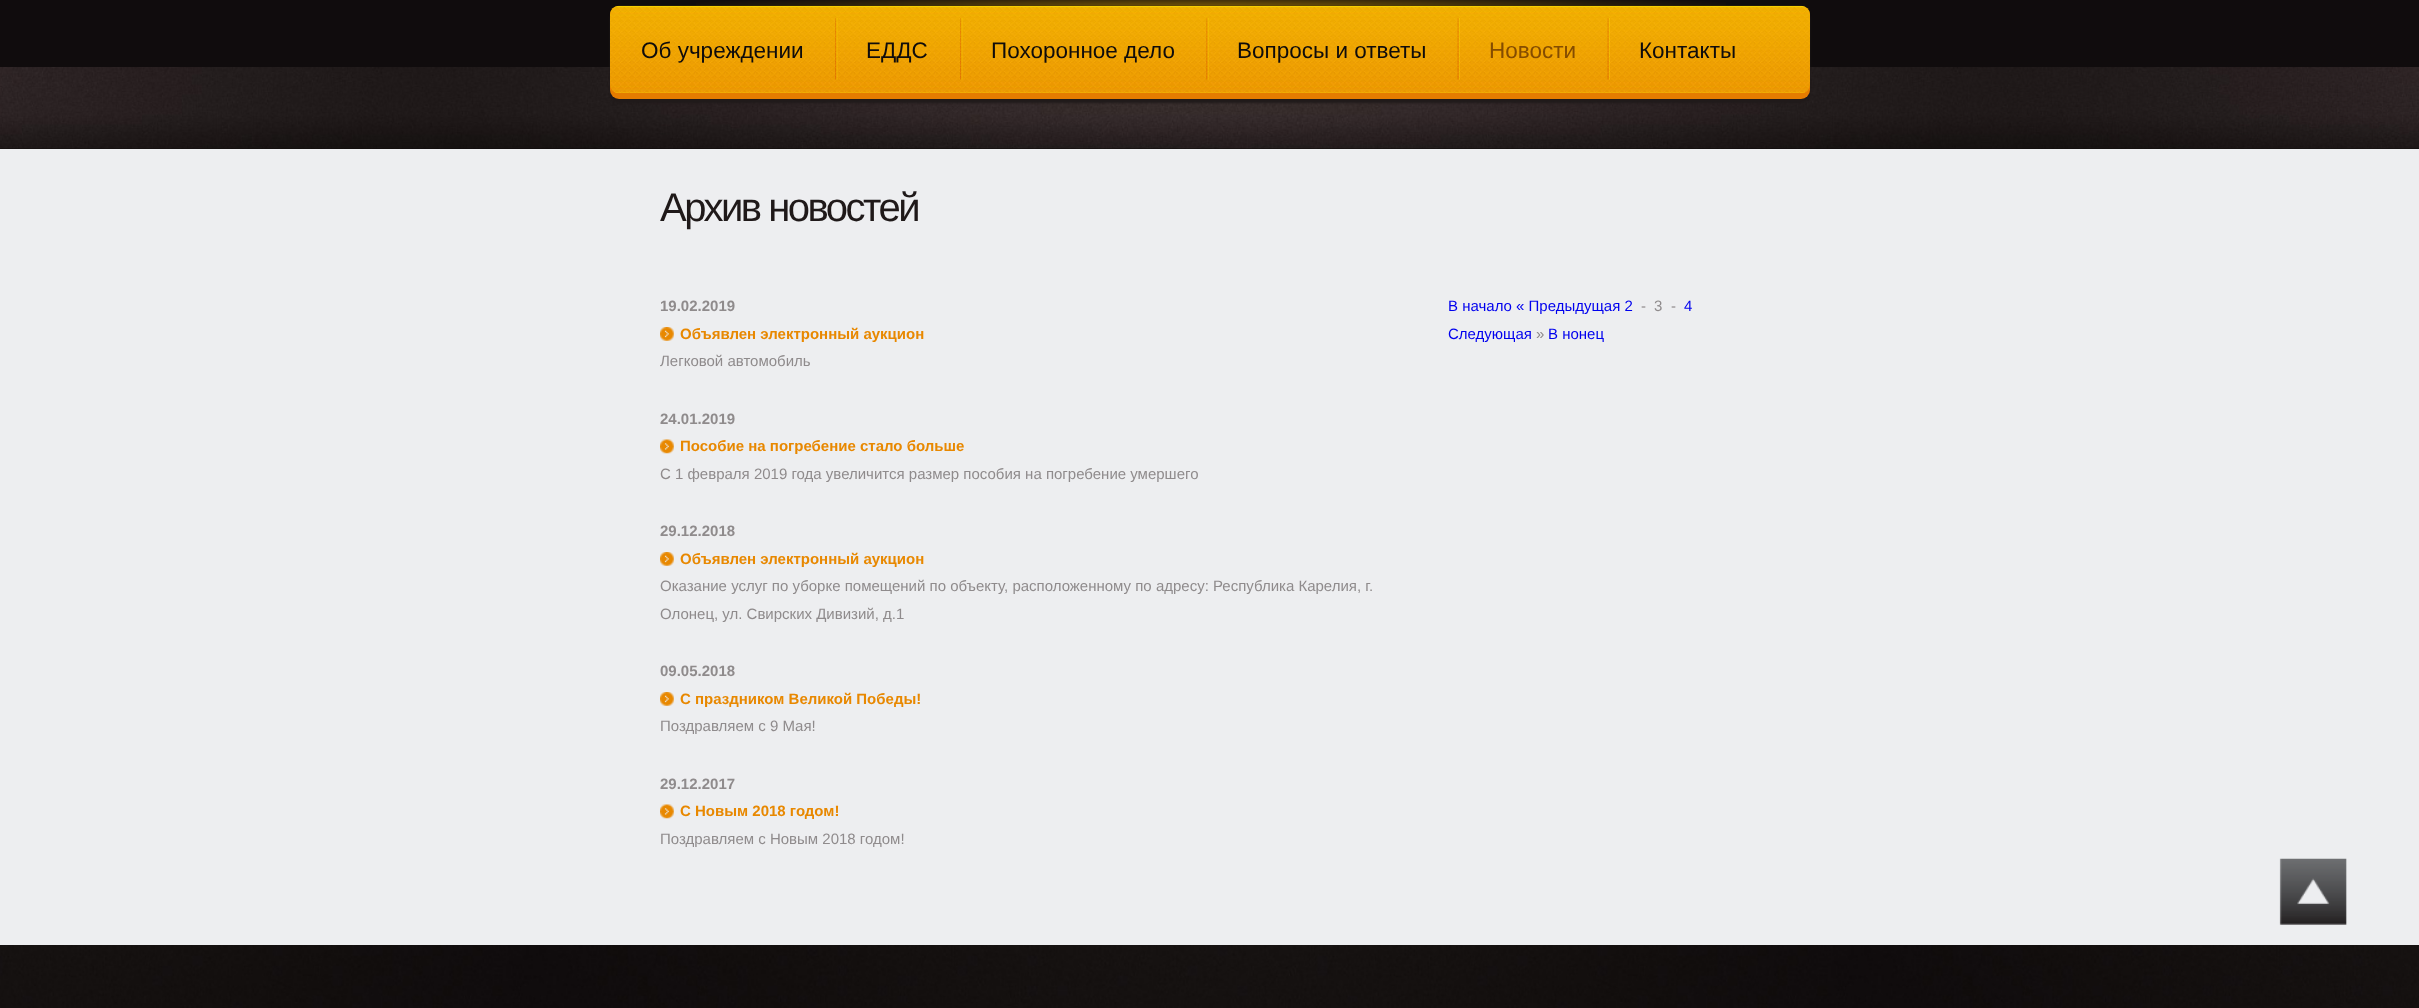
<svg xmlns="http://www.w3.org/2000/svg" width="2419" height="1008">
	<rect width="100%" height="100%" fill="#FFFFFF" />
	<image x="0" y="148" width="2419" height="860" href="assets/img1.png" />
	<rect x="0" y="0" width="2419" height="67" fill="#100C0D" />
	<image x="696" y="0" width="1030" height="6" href="assets/img2.png" />
	<image x="0" y="67" width="2419" height="82" href="assets/img8.png" />
	<rect x="610" y="10" width="1200" height="93" rx="9" fill="#201A1A" filter="blur(1px)" />
	<rect x="610" y="6" width="1200" height="93" rx="9" fill="#E57C00" />
	<image x="610" y="5" width="1200" height="88" href="assets/img3.png" />
	<text x="641" y="58" font-family="Liberation Sans" font-size="22.5" fill="#0F0C0C">Об учреждении</text>
	<image x="835" y="18" width="3" height="62" href="assets/img4.png" />
	<text x="866" y="58" font-family="Liberation Sans" font-size="22.5" fill="#0F0C0C">ЕДДС</text>
	<image x="960" y="18" width="3" height="62" href="assets/img5.png" />
	<text x="991" y="58" font-family="Liberation Sans" font-size="22.5" fill="#0F0C0C">Похоронное дело</text>
	<image x="1206" y="18" width="3" height="62" href="assets/img6.png" />
	<text x="1237" y="58" font-family="Liberation Sans" font-size="22.5" fill="#0F0C0C">Вопросы и ответы</text>
	<image x="1457" y="18" width="3" height="62" href="assets/img7.png" />
	<text x="1489" y="58" font-family="Liberation Sans" font-size="22.5" fill="#844C01">Новости</text>
	<image x="1607" y="18" width="3" height="62" href="assets/img7.png" />
	<text x="1639" y="58" font-family="Liberation Sans" font-size="22.5" fill="#0F0C0C">Контакты</text>
	<rect x="0" y="149" width="2419" height="796" fill="#EDEEF0" />
	<text x="660" y="221" font-family="Liberation Sans" font-size="40" letter-spacing="-2.5" fill="#1F1919">Архив новостей</text>
	<text x="660" y="311" font-family="Liberation Sans" font-size="15" font-weight="700" fill="#8F8B8C">19.02.2019</text>
	<image x="660" y="327" width="14" height="14" href="assets/img9.png" />
	<text x="680" y="339" font-family="Liberation Sans" font-size="15" font-weight="700" fill="#E88800">Объявлен электронный аукцион</text>
	<text x="660" y="366" font-family="Liberation Sans" font-size="15" fill="#8F8B8C">Легковой автомобиль</text>
	<text x="660" y="424" font-family="Liberation Sans" font-size="15" font-weight="700" fill="#8F8B8C">24.01.2019</text>
	<image x="660" y="439" width="14" height="15" href="assets/img10.png" />
	<text x="680" y="451" font-family="Liberation Sans" font-size="15" font-weight="700" fill="#E88800">Пособие на погребение стало больше</text>
	<text x="660" y="479" font-family="Liberation Sans" font-size="15" fill="#8F8B8C">С 1 февраля 2019 года увеличится размер пособия на погребение умершего</text>
	<text x="660" y="536" font-family="Liberation Sans" font-size="15" font-weight="700" fill="#8F8B8C">29.12.2018</text>
	<image x="660" y="552" width="14" height="14" href="assets/img11.png" />
	<text x="680" y="564" font-family="Liberation Sans" font-size="15" font-weight="700" fill="#E88800">Объявлен электронный аукцион</text>
	<g font-family="Liberation Sans" font-size="15" fill="#8F8B8C">
		<text x="660" y="591">Оказание услуг по уборке помещений по объекту, расположенному по адресу: Республика Карелия, г.</text>
		<text x="660" y="619">Олонец, ул. Свирских Дивизий, д.1</text>
	</g>
	<text x="660" y="676" font-family="Liberation Sans" font-size="15" font-weight="700" fill="#8F8B8C">09.05.2018</text>
	<image x="660" y="692" width="14" height="14" href="assets/img9.png" />
	<text x="680" y="704" font-family="Liberation Sans" font-size="15" font-weight="700" fill="#E88800">С праздником Великой Победы!</text>
	<text x="660" y="731" font-family="Liberation Sans" font-size="15" fill="#8F8B8C">Поздравляем с 9 Мая!</text>
	<text x="660" y="789" font-family="Liberation Sans" font-size="15" font-weight="700" fill="#8F8B8C">29.12.2017</text>
	<image x="660" y="804" width="14" height="15" href="assets/img10.png" />
	<text x="680" y="816" font-family="Liberation Sans" font-size="15" font-weight="700" fill="#E88800">С Новым 2018 годом!</text>
	<text x="660" y="844" font-family="Liberation Sans" font-size="15" fill="#8F8B8C">Поздравляем с Новым 2018 годом!</text>
	<text x="1448" y="311" font-family="Liberation Sans" font-size="15" fill="#0000EE">В начало « Предыдущая 2</text>
	<g font-family="Liberation Sans" font-size="15" fill="#8F8B8C">
		<text x="1641" y="311">-</text>
		<text x="1654" y="311">3</text>
		<text x="1671" y="311">-</text>
	</g>
	<g font-family="Liberation Sans" font-size="15" fill="#0000EE">
		<text x="1684" y="311">4</text>
		<text x="1448" y="339">Следующая</text>
	</g>
	<text x="1536" y="339" font-family="Liberation Sans" font-size="15" fill="#8F8B8C">»</text>
	<text x="1548" y="339" font-family="Liberation Sans" font-size="15" fill="#0000EE">В нонец</text>
	<image x="2279" y="858" width="68" height="67" href="assets/img12.png" />
</svg>
